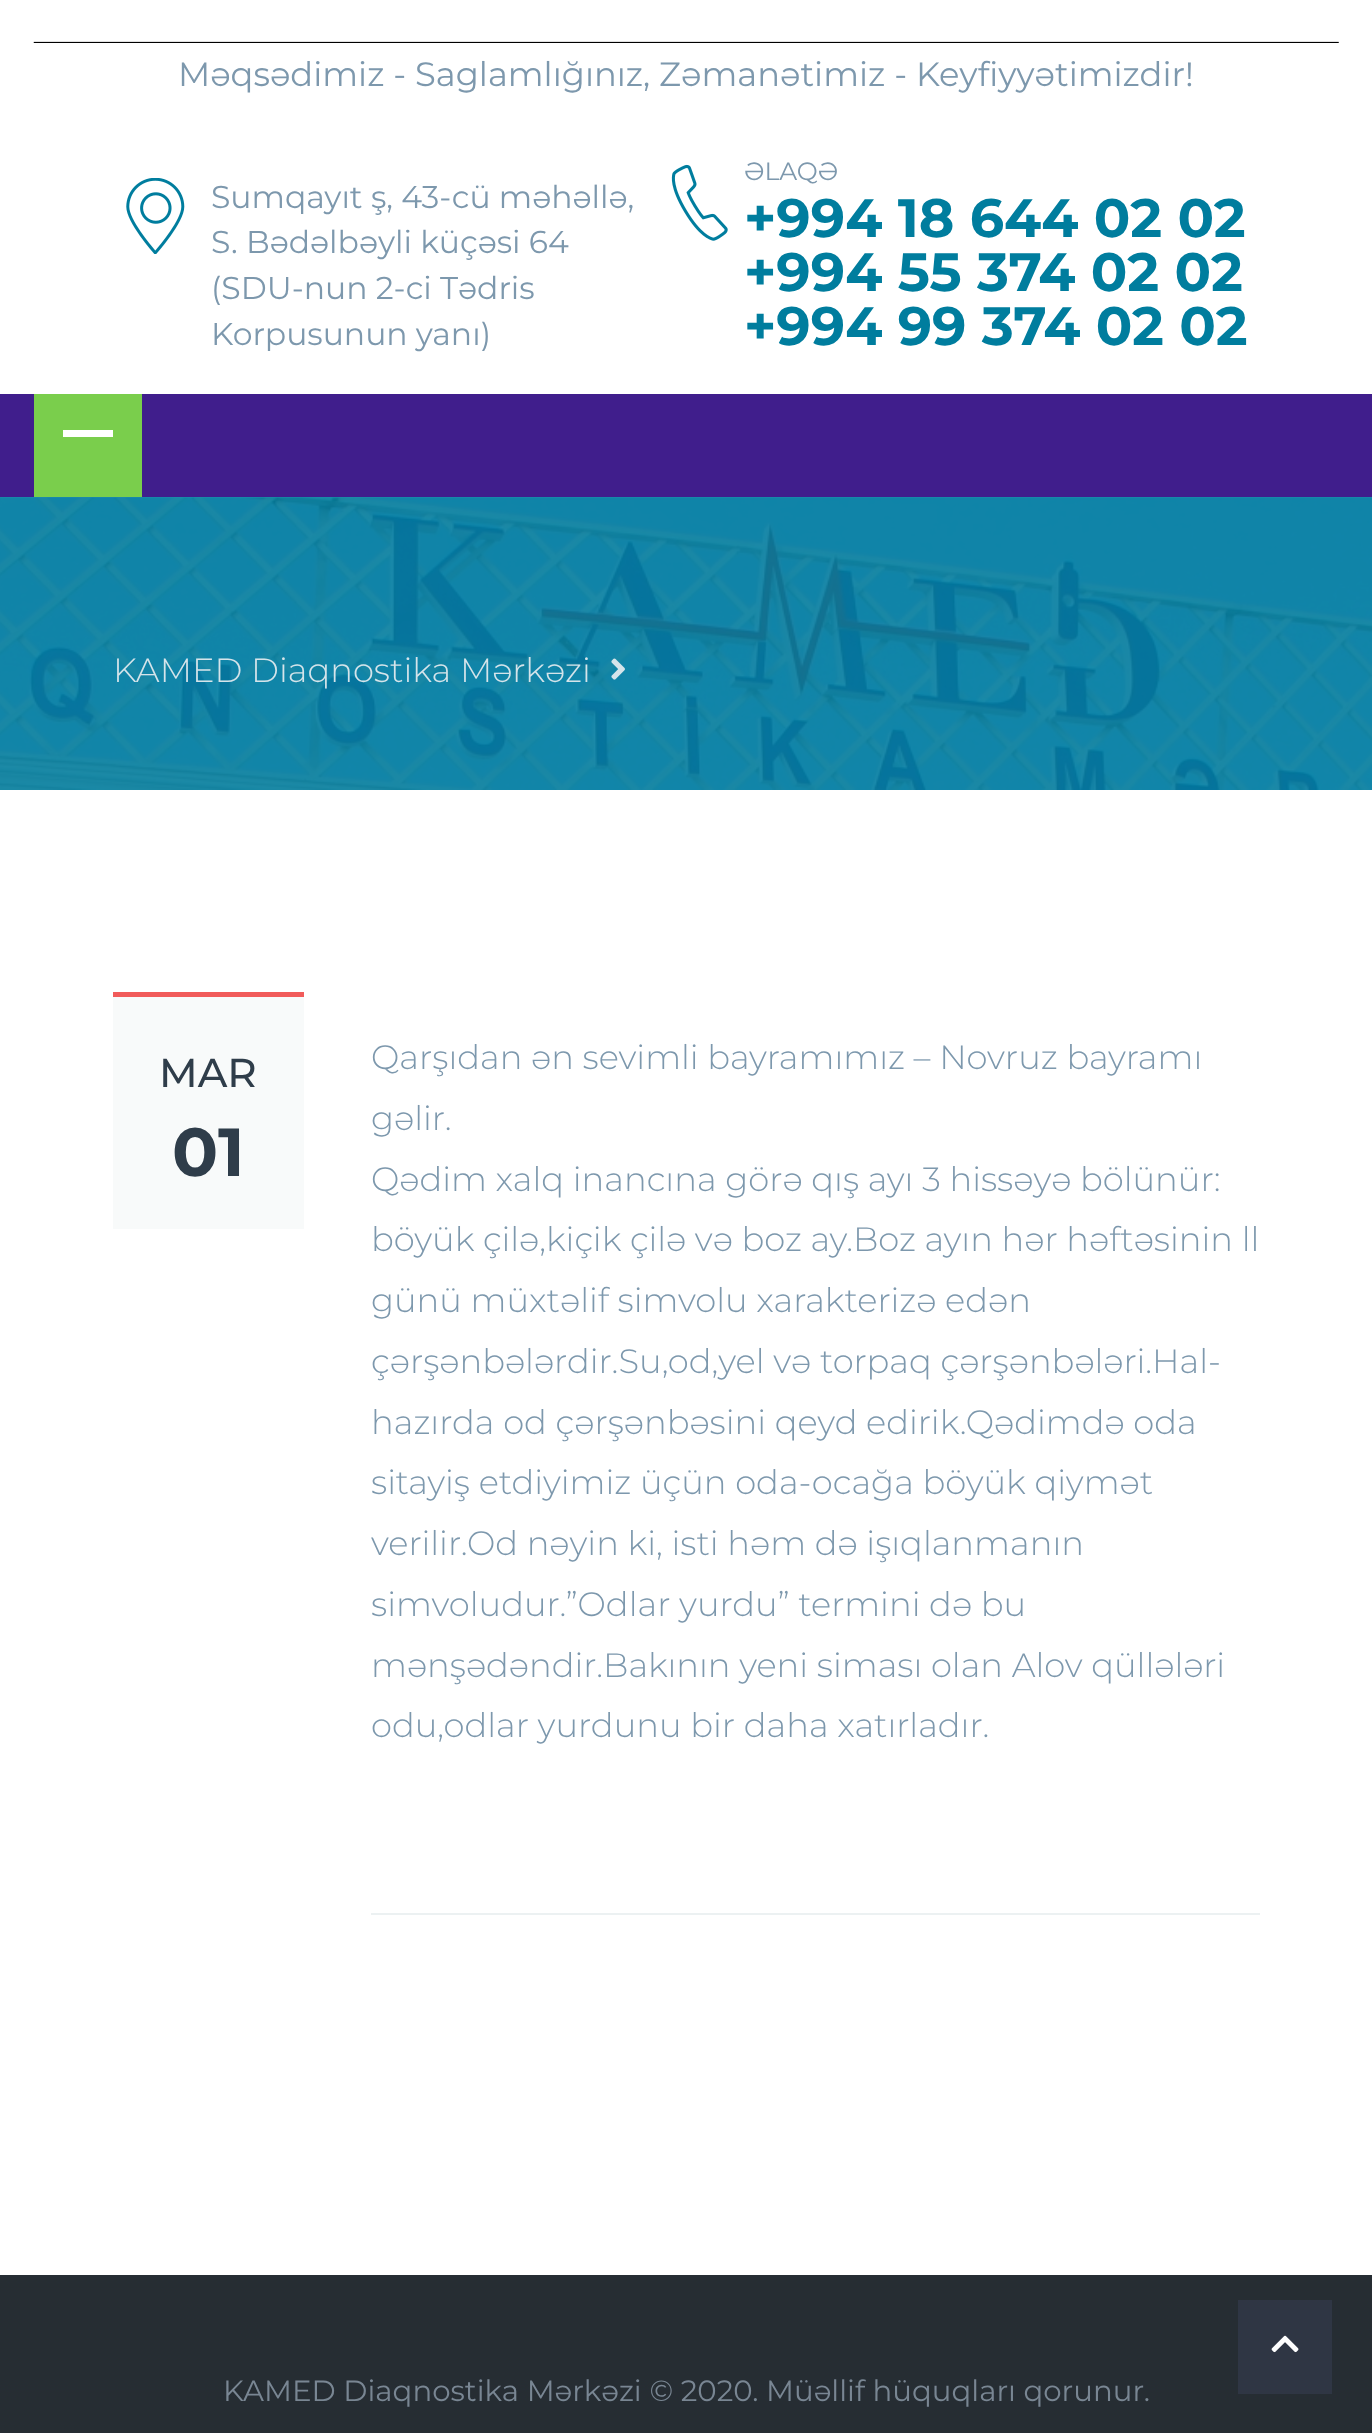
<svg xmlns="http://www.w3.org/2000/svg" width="1372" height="2433">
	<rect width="100%" height="100%" fill="#FFFFFF" />
	<rect x="0" y="497" width="1372" height="1" fill="#1F8DAA" />
	<image x="33" y="41" width="1306" height="2" href="assets/img1.png" />
	<text x="178" y="86" font-family="Montserrat" font-size="33.75" fill="#7D98AD">Məqsədimiz - Saglamlığınız, Zəmanətimiz - Keyfiyyətimizdir!</text>
	<image x="126" y="178" width="59" height="76" href="assets/img2.png" />
	<g font-family="Montserrat" font-size="31.5" fill="#7D98AD">
		<text x="211" y="208">Sumqayıt ş, 43-cü məhəllə,</text>
		<text x="211" y="253">S. Bədəlbəyli küçəsi 64</text>
		<text x="211" y="299">(SDU-nun 2-ci Tədris</text>
		<text x="211" y="345">Korpusunun yanı)</text>
	</g>
	<image x="671" y="164" width="57" height="77" href="assets/img3.png" />
	<text x="744" y="180" font-family="Montserrat" font-size="25" fill="#7D98AD">ƏLAQƏ</text>
	<g font-family="Montserrat" font-size="54" font-weight="700" fill="#007D9E">
		<text x="744" y="237">+994 18 644 02 02</text>
		<text x="744" y="291">+994 55 374 02 02</text>
		<text x="744" y="345">+994 99 374 02 02</text>
	</g>
	<rect x="0" y="394" width="1372" height="103" fill="#401E8C" />
	<rect x="34" y="394" width="108" height="103" fill="#7ACE4C" />
	<rect x="63" y="430" width="50" height="7" fill="#FFFFFF" />
	<image x="0" y="497" width="1372" height="293" href="assets/img4.png" />
	<text x="113" y="682" font-family="Montserrat" font-size="33.75" font-weight="300" fill="#D5E4EA">KAMED Diaqnostika Mərkəzi</text>
	<image x="611" y="658" width="14" height="22" href="assets/img5.png" />
	<rect x="113" y="992" width="191" height="5" fill="#F15B5A" />
	<rect x="113" y="997" width="191" height="232" fill="#F8FAFA" />
	<text x="159" y="1087" font-family="Montserrat" font-size="40.5" font-weight="500" fill="#2F3D4A">MAR</text>
	<text x="172" y="1176" font-family="Montserrat" font-size="68" font-weight="700" fill="#2F3D4A">01</text>
	<rect x="371" y="1913" width="889" height="2" fill="#ECF1F2" />
	<g font-family="Montserrat" font-size="33.75" font-weight="300" fill="#7D98AD">
		<text x="371" y="1069">Qarşıdan ən sevimli bayramımız – Novruz bayramı</text>
		<text x="371" y="1130">gəlir.</text>
		<text x="371" y="1191">Qədim xalq inancına görə qış ayı 3 hissəyə bölünür:</text>
		<text x="371" y="1251">böyük çilə,kiçik çilə və boz ay.Boz ayın hər həftəsinin ll</text>
		<text x="371" y="1312">günü müxtəlif simvolu xarakterizə edən</text>
		<text x="371" y="1373">çərşənbələrdir.Su,od,yel və torpaq çərşənbələri.Hal-</text>
		<text x="371" y="1434">hazırda od çərşənbəsini qeyd edirik.Qədimdə oda</text>
		<text x="371" y="1494">sitayiş etdiyimiz üçün oda-ocağa böyük qiymət</text>
		<text x="371" y="1555">verilir.Od nəyin ki, isti həm də işıqlanmanın</text>
		<text x="371" y="1616">simvoludur.”Odlar yurdu” termini də bu</text>
		<text x="371" y="1677">mənşədəndir.Bakının yeni siması olan Alov qüllələri</text>
		<text x="371" y="1737">odu,odlar yurdunu bir daha xatırladır.</text>
	</g>
	<rect x="0" y="2275" width="1372" height="158" fill="#262D33" />
	<text x="223" y="2401" font-family="Montserrat" font-size="29.25" fill="#798693">KAMED Diaqnostika Mərkəzi © 2020. Müəllif hüquqları qorunur.</text>
	<rect x="1238" y="2300" width="94" height="94" fill="#2F3644" />
	<image x="1271" y="2335" width="28" height="18" href="assets/img6.png" />
</svg>
